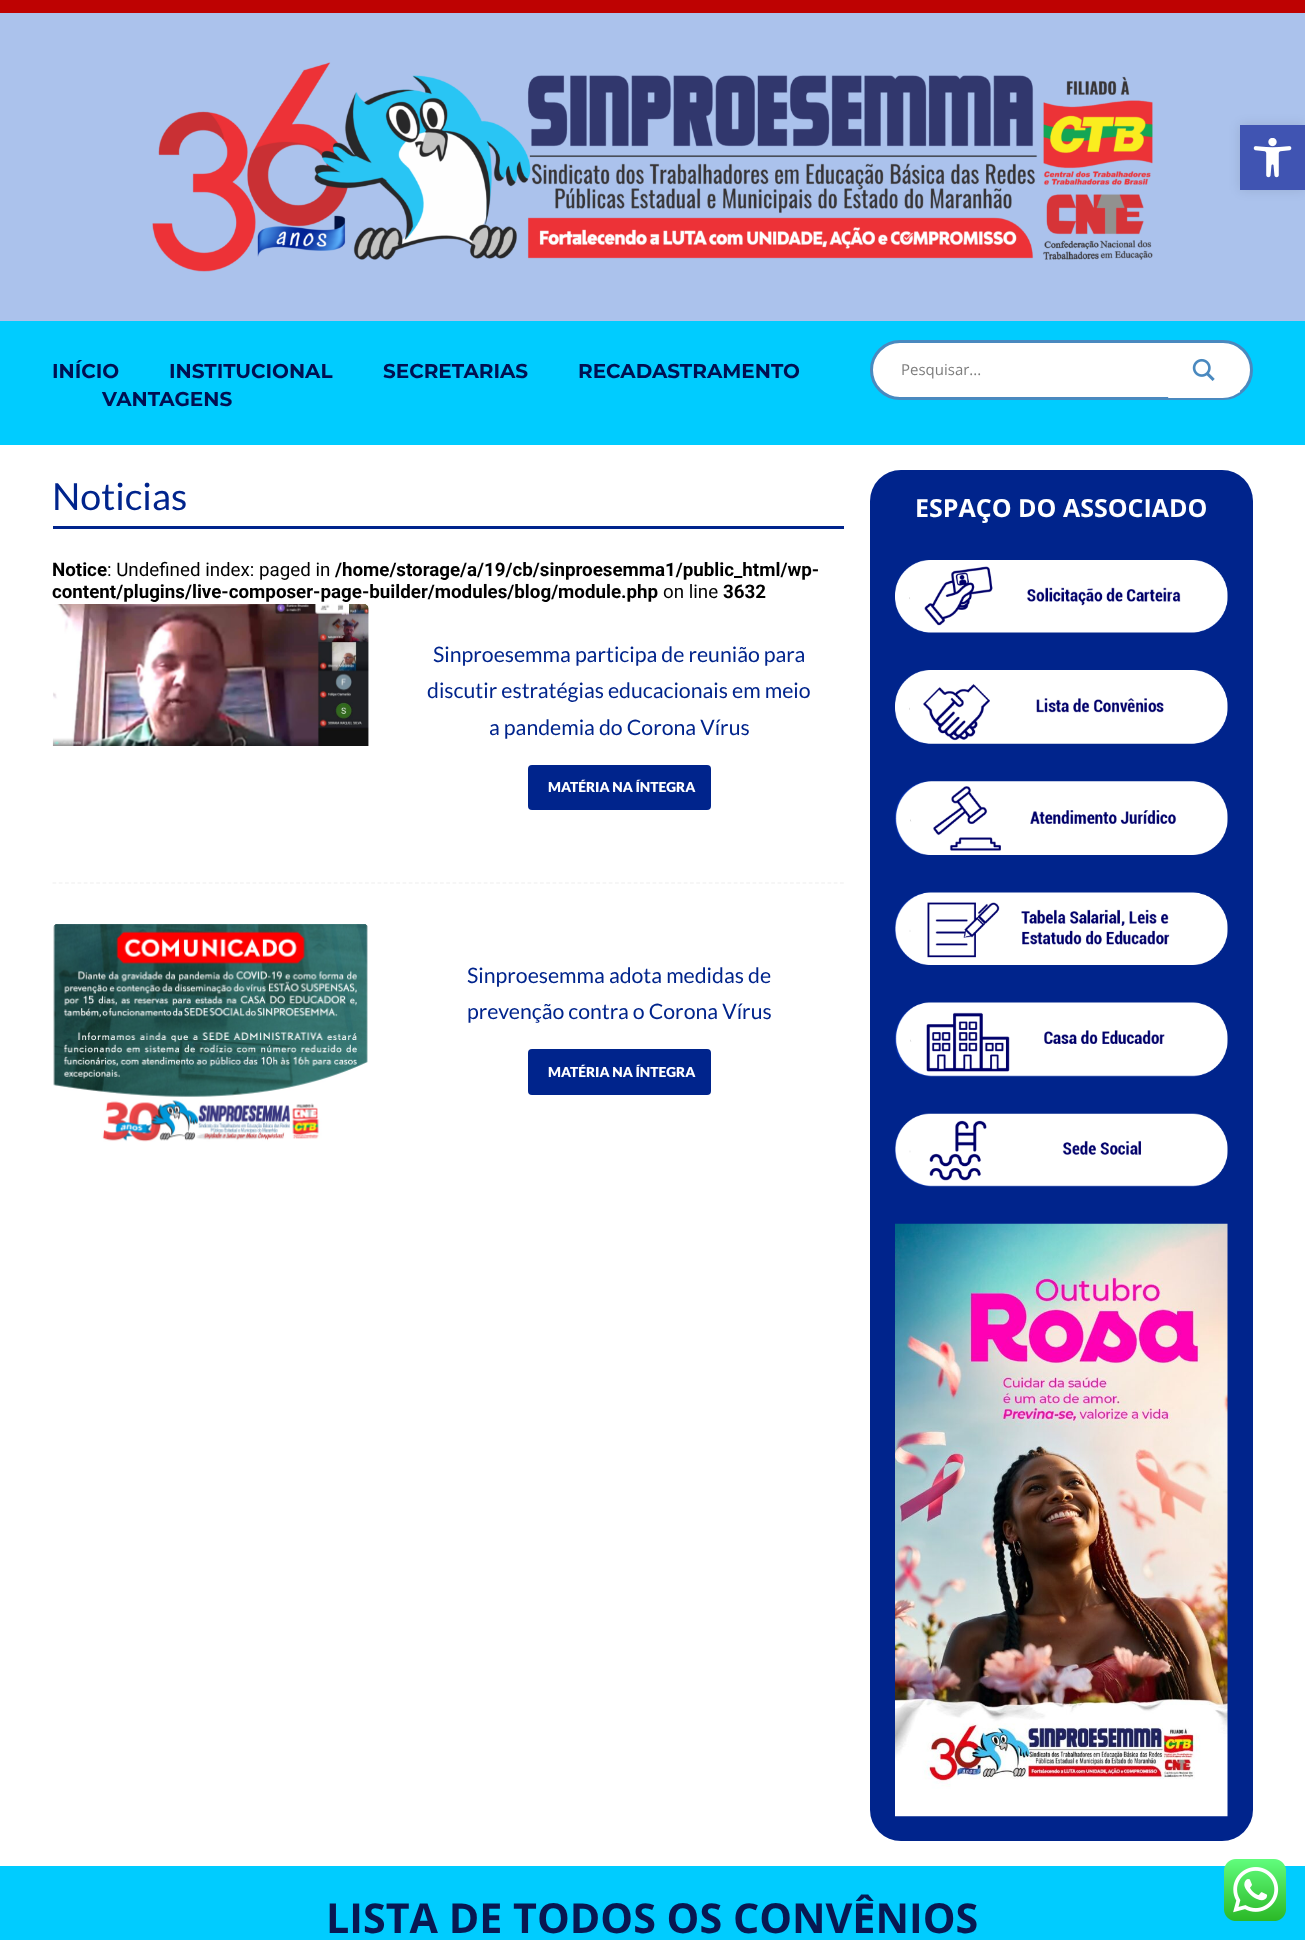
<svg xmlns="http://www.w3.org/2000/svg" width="1305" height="1940">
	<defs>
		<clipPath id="clip1"><rect x="873" y="343" width="377" height="55" rx="27.5" /></clipPath>
	</defs>
	<rect width="100%" height="100%" fill="#FFFFFF" />
	<rect x="0" y="13" width="1305" height="308" fill="#ABC2EC" />
	<rect x="1240" y="125" width="65" height="65" fill="#000000" fill-opacity="0.1" filter="blur(6px)" />
	<rect x="1240" y="125" width="65" height="65" fill="#4054B2" />
	<image x="1253" y="138" width="39" height="40" href="assets/img1.png" />
	<rect x="0" y="0" width="1305" height="13" fill="#BE0202" />
	<image x="152" y="62" width="1001" height="210" href="assets/img2.png" />
	<rect x="0" y="321" width="1305" height="124" fill="#00CCFF" />
	<g font-family="Montserrat" font-size="20" font-weight="700" fill="#001052">
		<text x="52" y="378">INÍCIO</text>
		<text x="169" y="378">INSTITUCIONAL</text>
		<text x="383" y="378">SECRETARIAS</text>
		<text x="578" y="378">RECADASTRAMENTO</text>
		<text x="102" y="406">VANTAGENS</text>
	</g>
	<rect x="871.5" y="341.5" width="380" height="57" rx="28.5" fill="#FFFFFF" stroke="#4A89BF" stroke-width="3" />
	<text x="901" y="375" font-family="Open Sans" font-size="15" fill="#7D7D7D">Pesquisar...</text>
	<g clip-path="url(#clip1)">
		<rect x="1168" y="353" width="72" height="47" rx="4" fill="#FFFFFF" />
	</g>
	<path d="M1170 354H1235C1237 354 1239 355 1239 358V393L1240 392V357C1240 355 1238 353 1236 353H1172C1171 353 1170 353 1169 354Z" fill="#FFFFFF" fill-opacity="0.64" />
	<image x="1192" y="358" width="23" height="23" href="assets/img3.png" />
	<text x="52" y="510" font-family="Lato" font-size="37.5" fill="#00248C">Noticias</text>
	<rect x="53" y="526" width="791" height="3" fill="#00248C" />
	<text x="52" y="576" font-family="Roboto" font-size="18.75" font-weight="700" fill="#000000">Notice</text>
	<text x="107" y="576" font-family="Roboto" font-size="18.75" fill="#000000">: Undefined index: paged in</text>
	<g font-family="Roboto" font-size="18.75" font-weight="700" fill="#000000">
		<text x="335" y="576">/home/storage/a/19/cb/sinproesemma1/public_html/wp-</text>
		<text x="52" y="598">content/plugins/live-composer-page-builder/modules/blog/module.php</text>
	</g>
	<text x="663" y="598" font-family="Roboto" font-size="18.75" fill="#000000">on line</text>
	<text x="723" y="598" font-family="Roboto" font-size="18.75" font-weight="700" fill="#000000">3632</text>
	<image x="52" y="604" width="317" height="142" href="assets/img4.png" />
	<g font-family="Lato" font-size="21.25" fill="#00248C">
		<text x="433" y="662">Sinproesemma participa de reunião para</text>
		<text x="427" y="698">discutir estratégias educacionais em meio</text>
		<text x="489" y="735">a pandemia do Corona Vírus</text>
	</g>
	<rect x="528" y="765" width="183" height="45" rx="4" fill="#00248C" />
	<text x="548" y="792" font-family="Lato" font-size="13.75" font-weight="900" fill="#FFFFFF">MATÉRIA NA ÍNTEGRA</text>
	<path d="M52.5 883H844" fill="none" stroke="#EDEDED" stroke-width="1.2" stroke-dasharray="3.75 2.5" />
	<image x="53" y="924" width="315" height="218" href="assets/img5.png" />
	<g font-family="Lato" font-size="21.25" fill="#00248C">
		<text x="467" y="983">Sinproesemma adota medidas de</text>
		<text x="467" y="1019">prevenção contra o Corona Vírus</text>
	</g>
	<rect x="528" y="1049" width="183" height="46" rx="4" fill="#00248C" />
	<text x="548" y="1077" font-family="Lato" font-size="13.75" font-weight="900" fill="#FFFFFF">MATÉRIA NA ÍNTEGRA</text>
	<rect x="870" y="470" width="383" height="1371" rx="31" fill="#00248C" />
	<text x="915" y="517" font-family="Open Sans" font-size="25" font-weight="700" fill="#FFFFFF">ESPAÇO DO ASSOCIADO</text>
	<image x="895" y="560" width="333" height="73" href="assets/img6.png" />
	<image x="895" y="670" width="333" height="74" href="assets/img7.png" />
	<image x="895" y="781" width="333" height="74" href="assets/img8.png" />
	<image x="895" y="892" width="333" height="73" href="assets/img9.png" />
	<image x="895" y="1002" width="333" height="75" href="assets/img10.png" />
	<image x="895" y="1113" width="333" height="74" href="assets/img11.png" />
	<image x="895" y="1223" width="333" height="594" href="assets/img12.png" />
	<rect x="0" y="1866" width="1305" height="74" fill="#00CCFF" />
	<text x="326" y="1933" font-family="Open Sans" font-size="41.25" font-weight="700" fill="#081852">LISTA DE TODOS OS CONVÊNIOS</text>
	<image x="1224" y="1859" width="62" height="62" href="assets/img13.png" />
</svg>
